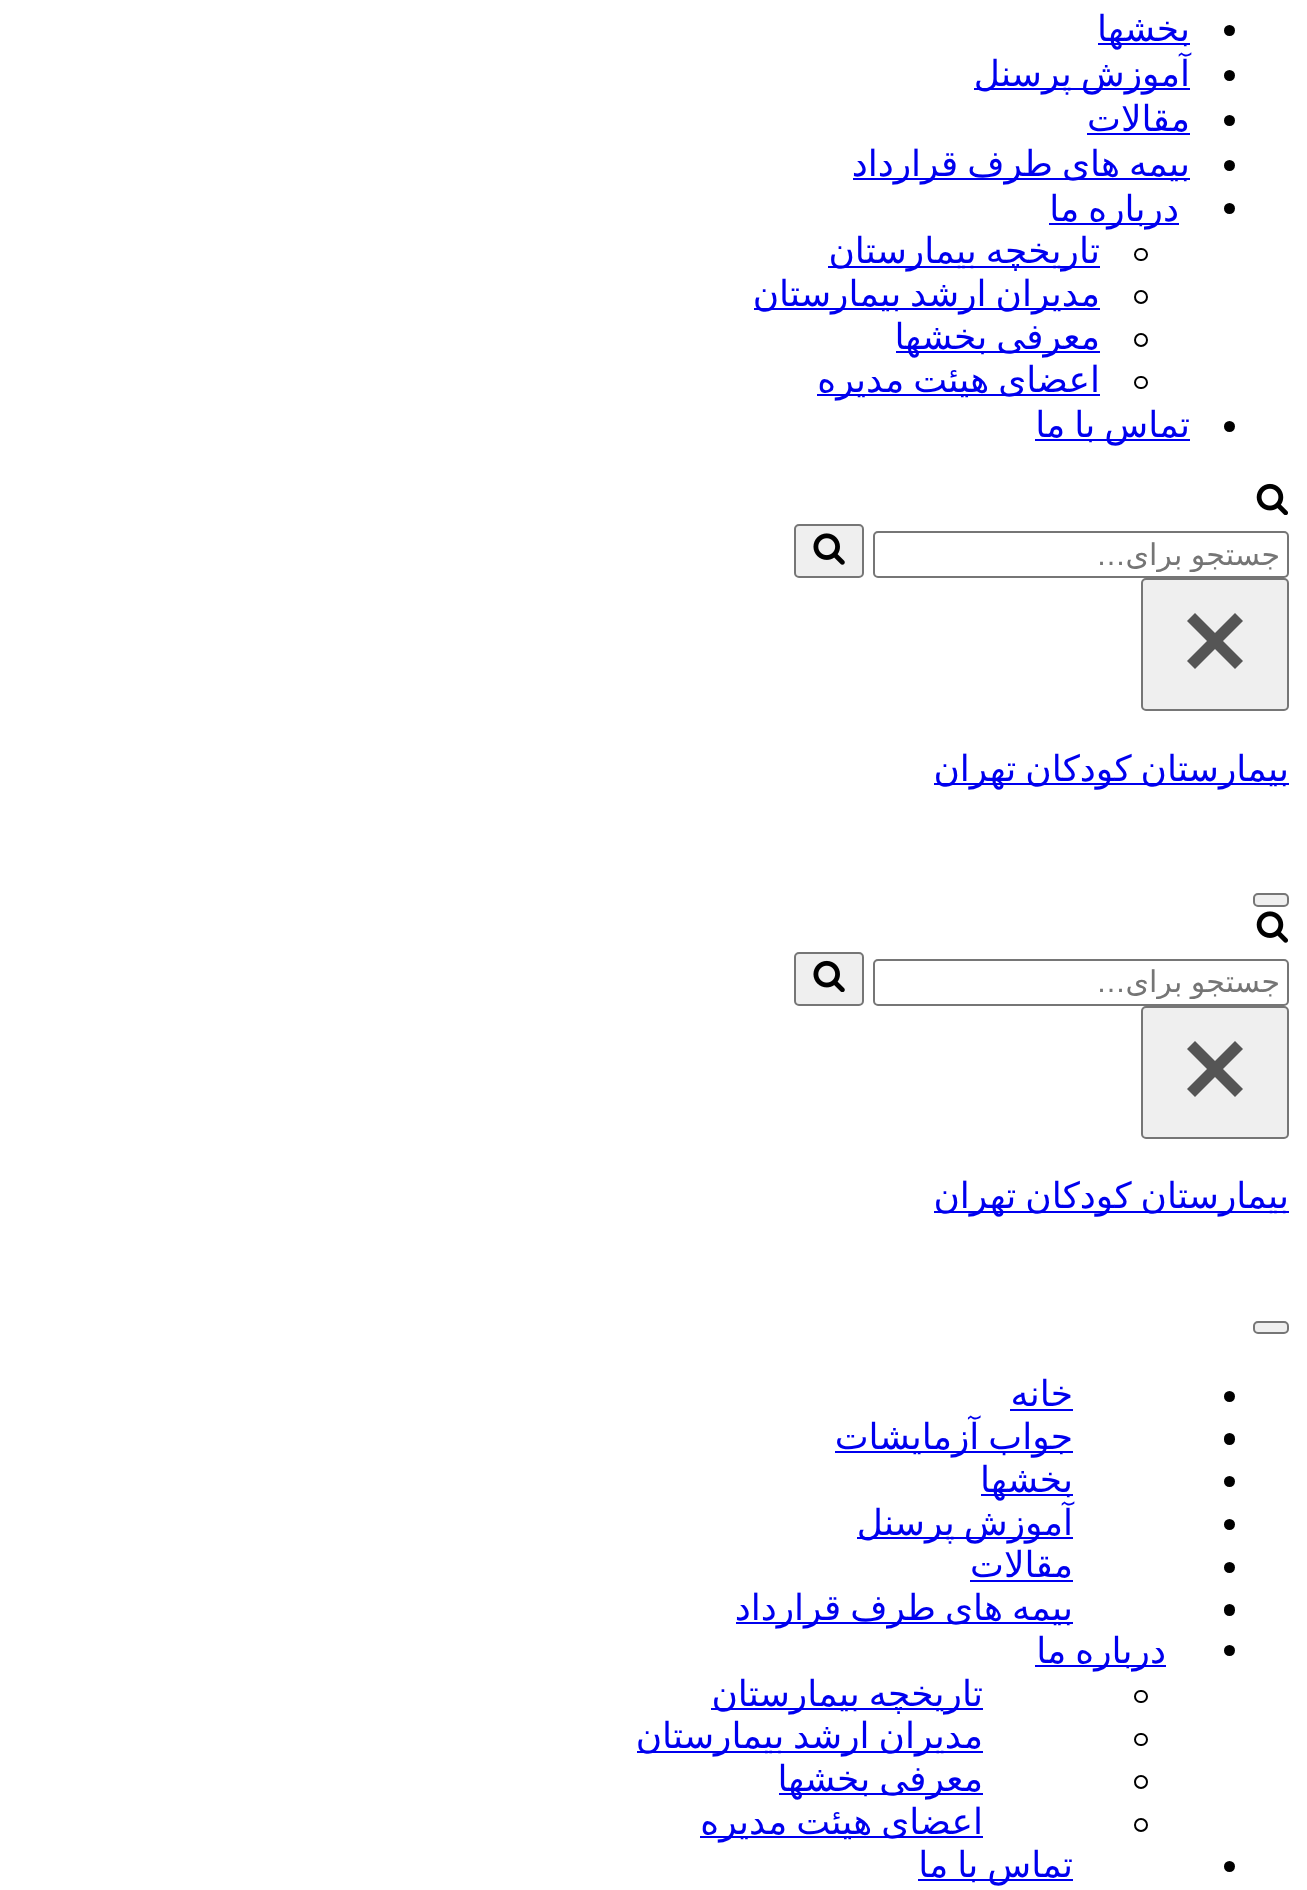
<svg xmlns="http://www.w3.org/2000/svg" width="1307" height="1890">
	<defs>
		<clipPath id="clip1"><rect x="911" y="538" width="369" height="34" /></clipPath>
		<clipPath id="clip2"><rect x="911" y="965" width="369" height="34" /></clipPath>
	</defs>
	<rect width="100%" height="100%" fill="#FFFFFF" />
	<circle cx="1229.5" cy="30.5" r="5.5" fill="#000000" />
	<rect x="1098" y="43" width="92" height="2" fill="#0000EE" />
	<text x="1190" y="41" font-family="DejaVu Sans" font-size="36" direction="rtl" fill="#0000EE">بخشها</text>
	<circle cx="1229.5" cy="75.5" r="5.5" fill="#000000" />
	<rect x="974" y="88" width="216" height="2" fill="#0000EE" />
	<text x="1190" y="86" word-spacing="-2.5" font-family="DejaVu Sans" font-size="36" direction="rtl" fill="#0000EE">آموزش پرسنل</text>
	<circle cx="1229.5" cy="120.5" r="5.5" fill="#000000" />
	<text x="1190" y="131" font-family="DejaVu Sans" font-size="36" direction="rtl" fill="#0000EE">مقالات</text>
	<rect x="1087" y="133" width="103" height="2" fill="#0000EE" />
	<circle cx="1229.5" cy="165.5" r="5.5" fill="#000000" />
	<rect x="853" y="178" width="337" height="2" fill="#0000EE" />
	<text x="1190" y="176" word-spacing="-2.5" font-family="DejaVu Sans" font-size="36" direction="rtl" fill="#0000EE">بیمه های طرف قرارداد</text>
	<circle cx="1229.5" cy="208.5" r="5.5" fill="#000000" />
	<rect x="1049" y="223" width="130" height="2" fill="#0000EE" />
	<text x="1179" y="221" word-spacing="-2.5" font-family="DejaVu Sans" font-size="36" direction="rtl" fill="#0000EE">درباره ما</text>
	<rect x="1135" y="249" width="12" height="11" rx="5.5" fill="none" stroke="#000000" stroke-width="2" />
	<rect x="828" y="266" width="272" height="2" fill="#0000EE" />
	<text x="1100" y="263" word-spacing="-2.5" font-family="DejaVu Sans" font-size="36" direction="rtl" fill="#0000EE">تاریخچه بيمارستان</text>
	<circle cx="1141" cy="297" r="6" fill="none" stroke="#000000" stroke-width="2" />
	<rect x="754" y="308" width="346" height="2" fill="#0000EE" />
	<text x="1100" y="306" word-spacing="-2.5" font-family="DejaVu Sans" font-size="36" direction="rtl" fill="#0000EE">مدیران ارشد بیمارستان</text>
	<circle cx="1141" cy="340" r="6" fill="none" stroke="#000000" stroke-width="2" />
	<rect x="896" y="351" width="204" height="2" fill="#0000EE" />
	<text x="1100" y="349" word-spacing="-2.5" font-family="DejaVu Sans" font-size="36" direction="rtl" fill="#0000EE">معرفی بخشها</text>
	<rect x="1135" y="377" width="12" height="11" rx="5.5" fill="none" stroke="#000000" stroke-width="2" />
	<rect x="817" y="394" width="283" height="2" fill="#0000EE" />
	<text x="1100" y="392" word-spacing="-2.5" font-family="DejaVu Sans" font-size="36" direction="rtl" fill="#0000EE">اعضای هیئت مدیره</text>
	<circle cx="1229.5" cy="426.5" r="5.5" fill="#000000" />
	<rect x="1035" y="439" width="155" height="2" fill="#0000EE" />
	<text x="1190" y="437" word-spacing="-2.5" font-family="DejaVu Sans" font-size="36" direction="rtl" fill="#0000EE">تماس با ما</text>
	<image x="1256" y="483" width="32" height="32" href="assets/img1.png" />
	<rect x="874" y="532" width="414" height="45" rx="4" fill="none" stroke="#767676" stroke-width="2" />
	<g clip-path="url(#clip1)">
		<text x="1280" y="565" word-spacing="-1" font-family="DejaVu Sans" font-size="30" direction="rtl" fill="#757575">جستجو برای</text>
	</g>
	<text x="1126" y="565" font-family="Liberation Sans" font-size="30" direction="rtl" fill="#757575">…</text>
	<rect x="795" y="525" width="68" height="52" rx="4" fill="#EFEFEF" stroke="#767676" stroke-width="2" />
	<image x="813" y="533" width="32" height="32" href="assets/img2.png" />
	<rect x="1142" y="579" width="146" height="131" rx="4" fill="#EFEFEF" stroke="#767676" stroke-width="2" />
	<path d="M1243 621L1223 641L1243 661L1235 669L1215 649L1195 669L1187 661L1207 641L1187 621L1195 613L1215 633L1235 613Z" fill="#555555" />
	<rect x="934" y="783" width="355" height="2" fill="#0000EE" />
	<text x="1289" y="781" word-spacing="-2.5" font-family="DejaVu Sans" font-size="36" direction="rtl" fill="#0000EE">بیمارستان کودکان تهران</text>
	<rect x="1254" y="894" width="34" height="12" rx="4" fill="#EFEFEF" stroke="#767676" stroke-width="2" />
	<image x="1256" y="911" width="32" height="32" href="assets/img3.png" />
	<rect x="874" y="960" width="414" height="45" rx="4" fill="none" stroke="#767676" stroke-width="2" />
	<g clip-path="url(#clip2)">
		<text x="1280" y="992" word-spacing="-1" font-family="DejaVu Sans" font-size="30" direction="rtl" fill="#757575">جستجو برای</text>
	</g>
	<text x="1126" y="992" font-family="Liberation Sans" font-size="30" direction="rtl" fill="#757575">…</text>
	<rect x="795" y="953" width="68" height="52" rx="4" fill="#EFEFEF" stroke="#767676" stroke-width="2" />
	<image x="813" y="960" width="32" height="32" href="assets/img4.png" />
	<rect x="1142" y="1007" width="146" height="131" rx="4" fill="#EFEFEF" stroke="#767676" stroke-width="2" />
	<path d="M1243 1049L1223 1069L1243 1089L1235 1097L1215 1077L1195 1097L1187 1089L1207 1069L1187 1049L1195 1041L1215 1061L1235 1041Z" fill="#555555" />
	<rect x="934" y="1211" width="355" height="2" fill="#0000EE" />
	<text x="1289" y="1208" word-spacing="-2.5" font-family="DejaVu Sans" font-size="36" direction="rtl" fill="#0000EE">بیمارستان کودکان تهران</text>
	<rect x="1254" y="1322" width="34" height="11" rx="4" fill="#EFEFEF" stroke="#767676" stroke-width="2" />
	<circle cx="1229.5" cy="1396.5" r="5.5" fill="#000000" />
	<text x="1073" y="1406" font-family="DejaVu Sans" font-size="36" direction="rtl" fill="#0000EE">خانه</text>
	<rect x="1010" y="1409" width="63" height="2" fill="#0000EE" />
	<rect x="1224" y="1433" width="11" height="12" rx="5.5" fill="#000000" />
	<rect x="835" y="1451" width="238" height="2" fill="#0000EE" />
	<text x="1073" y="1449" word-spacing="-2.5" font-family="DejaVu Sans" font-size="36" direction="rtl" fill="#0000EE">جواب آزمایشات</text>
	<circle cx="1229.5" cy="1481.5" r="5.5" fill="#000000" />
	<rect x="981" y="1494" width="92" height="2" fill="#0000EE" />
	<text x="1073" y="1492" font-family="DejaVu Sans" font-size="36" direction="rtl" fill="#0000EE">بخشها</text>
	<circle cx="1229.5" cy="1524.5" r="5.5" fill="#000000" />
	<rect x="857" y="1537" width="216" height="2" fill="#0000EE" />
	<text x="1073" y="1535" word-spacing="-2.5" font-family="DejaVu Sans" font-size="36" direction="rtl" fill="#0000EE">آموزش پرسنل</text>
	<circle cx="1229.5" cy="1567.5" r="5.5" fill="#000000" />
	<text x="1073" y="1577" font-family="DejaVu Sans" font-size="36" direction="rtl" fill="#0000EE">مقالات</text>
	<rect x="970" y="1580" width="103" height="2" fill="#0000EE" />
	<rect x="1224" y="1604" width="11" height="12" rx="5.5" fill="#000000" />
	<rect x="736" y="1622" width="337" height="2" fill="#0000EE" />
	<text x="1073" y="1620" word-spacing="-2.5" font-family="DejaVu Sans" font-size="36" direction="rtl" fill="#0000EE">بیمه های طرف قرارداد</text>
	<circle cx="1229.5" cy="1650.5" r="5.5" fill="#000000" />
	<rect x="1035" y="1665" width="131" height="2" fill="#0000EE" />
	<text x="1166" y="1663" word-spacing="-2.5" font-family="DejaVu Sans" font-size="36" direction="rtl" fill="#0000EE">درباره ما</text>
	<rect x="1135" y="1691" width="12" height="11" rx="5.5" fill="none" stroke="#000000" stroke-width="2" />
	<rect x="711" y="1708" width="272" height="2" fill="#0000EE" />
	<text x="983" y="1706" word-spacing="-2.5" font-family="DejaVu Sans" font-size="36" direction="rtl" fill="#0000EE">تاریخچه بيمارستان</text>
	<rect x="1135" y="1734" width="12" height="11" rx="5.5" fill="none" stroke="#000000" stroke-width="2" />
	<rect x="637" y="1751" width="346" height="2" fill="#0000EE" />
	<text x="983" y="1748" word-spacing="-2.5" font-family="DejaVu Sans" font-size="36" direction="rtl" fill="#0000EE">مدیران ارشد بیمارستان</text>
	<circle cx="1141" cy="1782" r="6" fill="none" stroke="#000000" stroke-width="2" />
	<rect x="779" y="1793" width="204" height="2" fill="#0000EE" />
	<text x="983" y="1791" word-spacing="-2.5" font-family="DejaVu Sans" font-size="36" direction="rtl" fill="#0000EE">معرفی بخشها</text>
	<circle cx="1141" cy="1825" r="6" fill="none" stroke="#000000" stroke-width="2" />
	<rect x="700" y="1836" width="283" height="2" fill="#0000EE" />
	<text x="983" y="1834" word-spacing="-2.5" font-family="DejaVu Sans" font-size="36" direction="rtl" fill="#0000EE">اعضای هیئت مدیره</text>
	<circle cx="1229.5" cy="1866.5" r="5.5" fill="#000000" />
	<rect x="918" y="1879" width="155" height="2" fill="#0000EE" />
	<text x="1073" y="1877" word-spacing="-2.5" font-family="DejaVu Sans" font-size="36" direction="rtl" fill="#0000EE">تماس با ما</text>
</svg>
